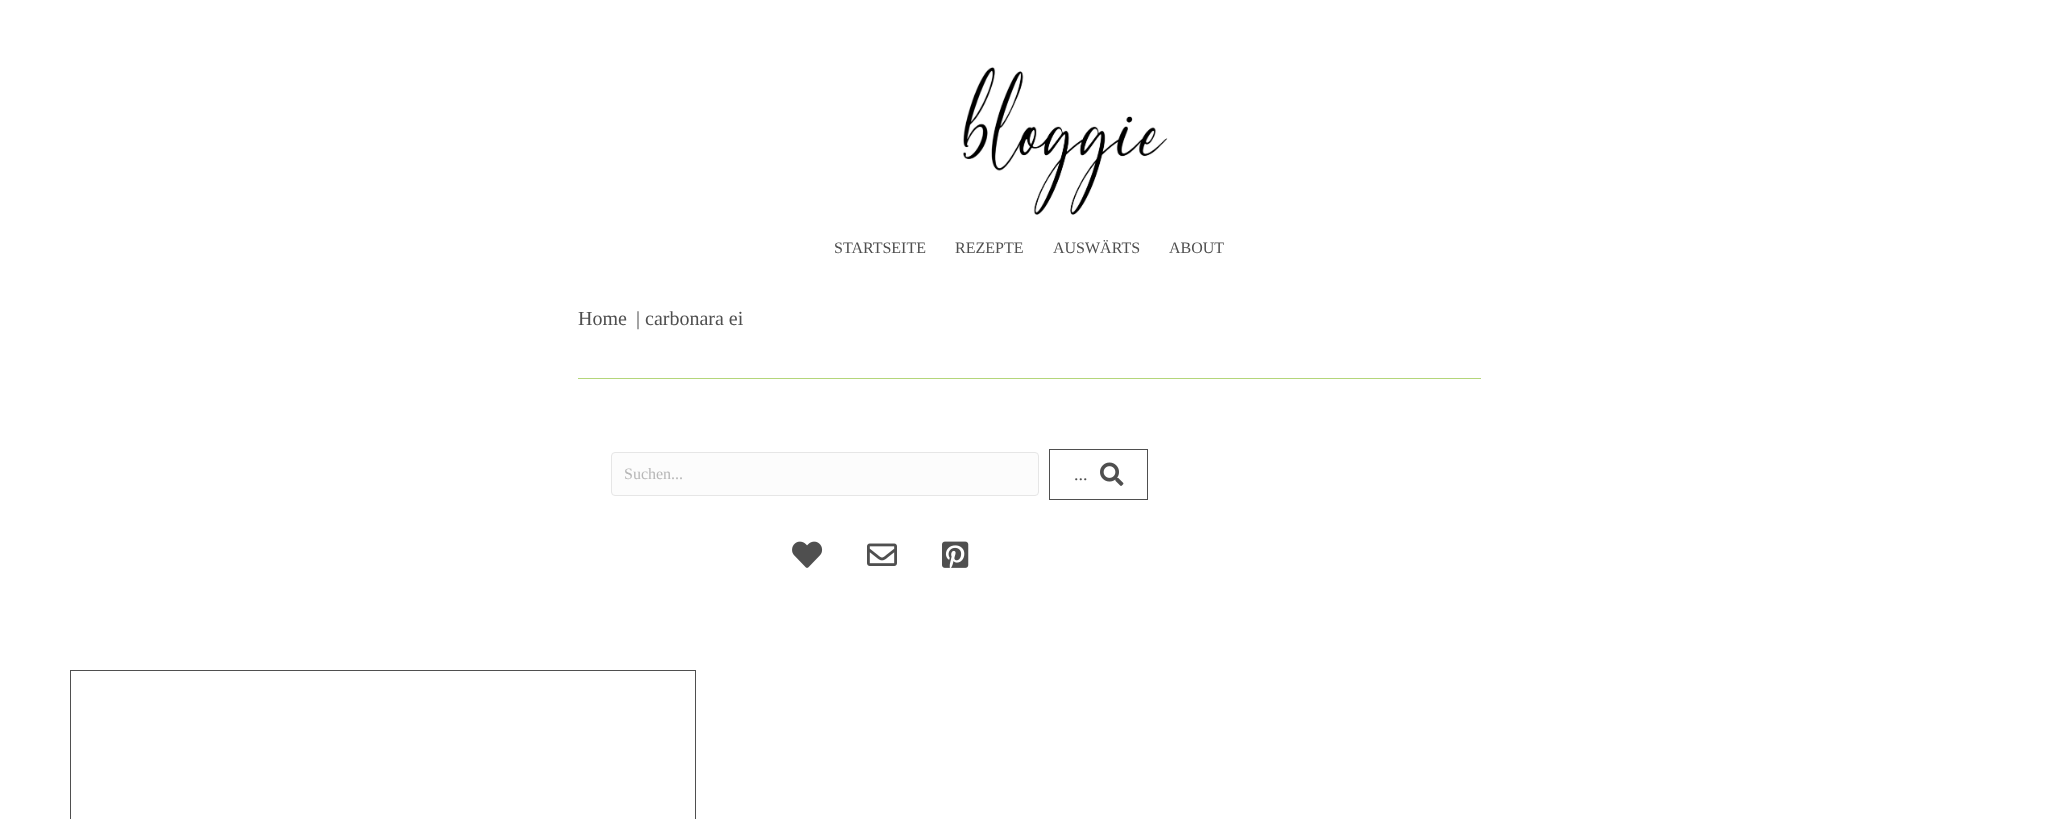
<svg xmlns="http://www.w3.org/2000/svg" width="2058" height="819">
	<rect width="100%" height="100%" fill="#FFFFFF" />
	<image x="963" y="67" width="205" height="148" href="assets/img1.png" />
	<g font-family="Liberation Serif" font-size="16" fill="#4F4F4F">
		<text x="834" y="253">STARTSEITE</text>
		<text x="955" y="253">REZEPTE</text>
		<text x="1053" y="253">AUSWÄRTS</text>
		<text x="1169" y="253">ABOUT</text>
	</g>
	<g font-family="Liberation Serif" font-size="20" fill="#4F4F4F">
		<text x="578" y="325">Home</text>
		<text x="636" y="325">| carbonara ei</text>
	</g>
	<rect x="578" y="378" width="903" height="1" fill="#B4D67A" />
	<rect x="611.5" y="452.5" width="427" height="43" rx="3.5" fill="#FCFCFC" stroke="#E6E6E6" />
	<text x="624" y="479" font-family="Liberation Serif" font-size="16" fill="#B7B7B7">Suchen...</text>
	<rect x="1049.5" y="449.5" width="98" height="50" fill="none" stroke="#4F4F4F" />
	<text x="1074" y="480" font-family="Liberation Serif" font-size="18" fill="#4F4F4F">...</text>
	<image x="1100" y="462" width="24" height="24" href="assets/img2.png" />
	<image x="792" y="541" width="31" height="27" href="assets/img3.png" />
	<image x="867" y="543" width="30" height="23" href="assets/img4.png" />
	<image x="942" y="541" width="27" height="27" href="assets/img5.png" />
	<rect x="70.5" y="670.5" width="625" height="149" fill="none" stroke="#4F4F4F" />
</svg>
